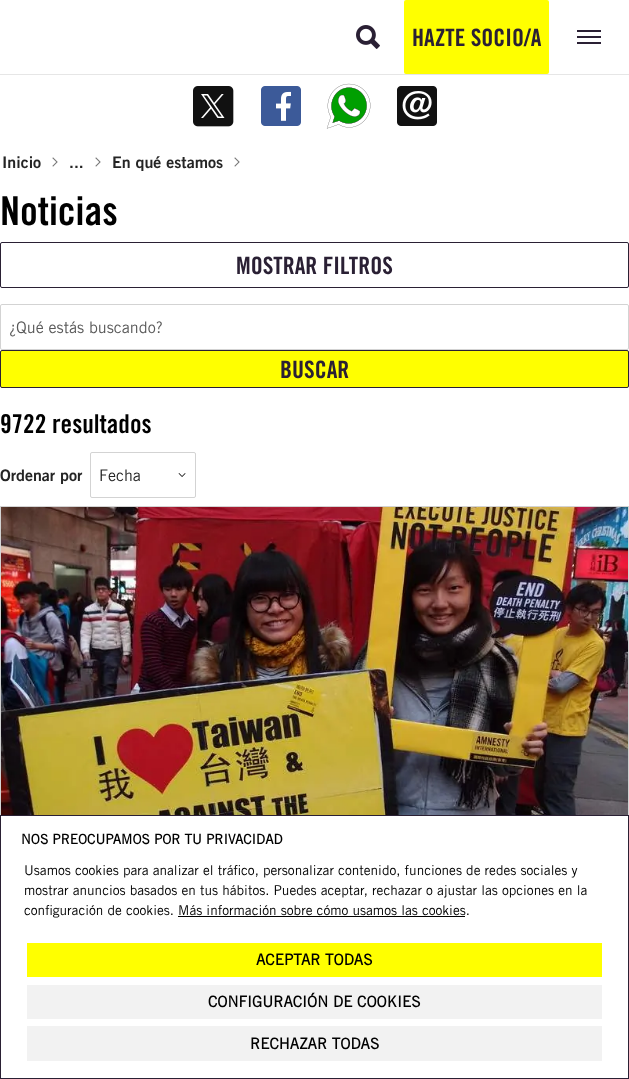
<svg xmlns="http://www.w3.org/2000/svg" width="629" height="1079">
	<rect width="100%" height="100%" fill="#FFFFFF" />
	<rect x="0" y="74" width="629" height="1" fill="#E6E6E6" />
	<image x="356" y="25" width="24" height="24" href="assets/img1.png" />
	<rect x="404" y="0" width="145" height="74" rx="2" fill="#FFFF00" />
	<text x="412" y="46" font-family="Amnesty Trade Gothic" font-size="24" font-weight="700" fill="#2A2034">HAZTE SOCIO/A</text>
	<rect x="577" y="36" width="24" height="2" fill="#2A2034" />
	<rect x="577" y="30" width="24" height="2" fill="#2A2034" />
	<rect x="577" y="42" width="24" height="2" fill="#2A2034" />
	<image x="193" y="86" width="41" height="41" href="assets/img2.png" />
	<image x="261" y="86" width="40" height="40" href="assets/img3.png" />
	<image x="326" y="83" width="45" height="46" href="assets/img4.png" />
	<image x="397" y="86" width="40" height="40" href="assets/img5.png" />
	<text x="2" y="168" font-family="'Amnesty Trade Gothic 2'" font-size="16" font-weight="700" fill="#252525">Inicio</text>
	<image x="52" y="157" width="6" height="10" href="assets/img6.png" />
	<text x="69" y="168" font-family="'Amnesty Trade Gothic 2'" font-size="16" font-weight="700" fill="#252525">...</text>
	<image x="95" y="157" width="6" height="10" href="assets/img6.png" />
	<text x="112" y="168" font-family="'Amnesty Trade Gothic 2'" font-size="16" font-weight="700" fill="#252525">En qué estamos</text>
	<image x="234" y="157" width="6" height="10" href="assets/img6.png" />
	<text x="0" y="225" font-family="Amnesty Trade Gothic" font-size="40" font-weight="700" fill="#000000">Noticias</text>
	<rect x="0.5" y="242.5" width="628" height="45" rx="1.5" fill="none" stroke="#2A2034" />
	<text x="236" y="274" font-family="Amnesty Trade Gothic" font-size="24" font-weight="700" fill="#2A2034">MOSTRAR FILTROS</text>
	<rect x="0.5" y="304.5" width="628" height="45" rx="1.5" fill="none" stroke="#D3D3D3" />
	<text x="9" y="333" font-family="Amnesty Trade Gothic" font-size="16" fill="#595959">¿Qué estás buscando?</text>
	<rect x="0.5" y="350.5" width="628" height="37" rx="1.5" fill="#FFFF00" stroke="#2A2034" />
	<text x="280" y="378" font-family="Amnesty Trade Gothic" font-size="24" font-weight="700" fill="#2A2034">BUSCAR</text>
	<text x="0" y="433" font-family="Amnesty Trade Gothic" font-size="26" font-weight="700" fill="#000000">9722 resultados</text>
	<text x="0" y="481" font-family="'Amnesty Trade Gothic 2'" font-size="16" font-weight="700" fill="#252525">Ordenar por</text>
	<rect x="90.5" y="452.5" width="105" height="45" rx="1.5" fill="none" stroke="#D3D3D3" />
	<text x="99" y="481" font-family="Amnesty Trade Gothic" font-size="16" fill="#252525">Fecha</text>
	<image x="178" y="473" width="8" height="4" href="assets/img7.png" />
	<rect x="0.5" y="506.5" width="628" height="566" fill="none" stroke="#D3D3D3" />
	<image x="1" y="507" width="627" height="308" href="assets/img8.png" />
	<rect x="1" y="1072" width="627" height="1" fill="#FFFFFF" />
	<rect x="0.5" y="815.5" width="628" height="263" fill="none" stroke="#2A2034" />
	<text x="21" y="844" font-family="'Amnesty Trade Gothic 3'" font-size="13.6" font-weight="700" fill="#000000">NOS PREOCUPAMOS POR TU PRIVACIDAD</text>
	<g font-family="Amnesty Trade Gothic" font-size="13.6" fill="#000000">
		<text x="24" y="875">Usamos cookies para analizar el tráfico, personalizar contenido, funciones de redes sociales y</text>
		<text x="24" y="895">mostrar anuncios basados en tus hábitos. Puedes aceptar, rechazar o ajustar las opciones en la</text>
		<text x="24" y="915">configuración de cookies. Más información sobre cómo usamos las cookies.</text>
	</g>
	<rect x="178" y="916" width="287" height="1" fill="#000000" />
	<rect x="27" y="943" width="575" height="34" fill="#FFFF00" />
	<text x="256" y="965" font-family="'Amnesty Trade Gothic 3'" font-size="15.25" font-weight="700" fill="#000000">ACEPTAR TODAS</text>
	<rect x="27" y="985" width="575" height="34" fill="#F2F2F2" />
	<text x="208" y="1007" font-family="'Amnesty Trade Gothic 3'" font-size="15.25" font-weight="700" fill="#000000">CONFIGURACIÓN DE COOKIES</text>
	<rect x="27" y="1026" width="575" height="35" fill="#F2F2F2" />
	<text x="250" y="1049" font-family="'Amnesty Trade Gothic 3'" font-size="15.25" font-weight="700" fill="#000000">RECHAZAR TODAS</text>
</svg>
